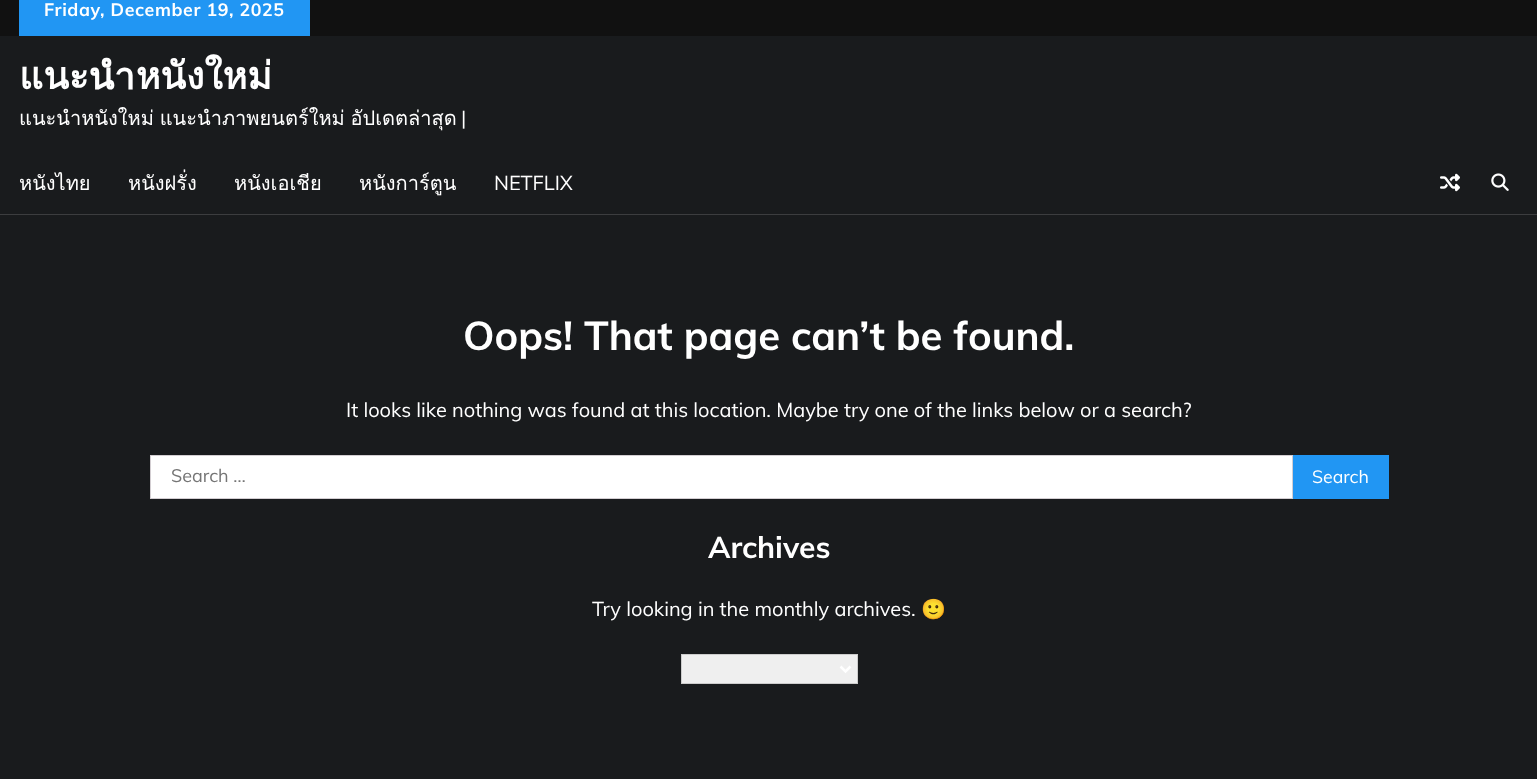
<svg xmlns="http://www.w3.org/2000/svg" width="1537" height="779">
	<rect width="100%" height="100%" fill="#191B1D" />
	<rect x="0" y="0" width="1537" height="36" fill="#111111" />
	<rect x="19" y="0" width="291" height="36" fill="#2196F3" />
	<text x="44" y="16" font-family="Muli" font-size="17.75" font-weight="700" letter-spacing="0.6" fill="#FFFFFF">Friday, December 19, 2025</text>
	<text x="19" y="89" font-family="Loma" font-size="37.5" font-weight="700" fill="#FFFFFF">แนะนำหนังใหม่</text>
	<text x="19" y="125" word-spacing="-1" font-family="Loma" font-size="20" fill="#FFFFFF">แนะนำหนังใหม่ แนะนำภาพยนตร์ใหม่ อัปเดตล่าสุด</text>
	<text x="461" y="125" font-family="Muli" font-size="20" fill="#FFFFFF">|</text>
	<rect x="0" y="214" width="1537" height="1" fill="#3C3D3F" />
	<g font-family="Loma" font-size="20" fill="#FFFFFF">
		<text x="19" y="190">หนังไทย</text>
		<text x="128" y="190">หนังฝรั่ง</text>
		<text x="234" y="190">หนังเอเชีย</text>
		<text x="359" y="190">หนังการ์ตูน</text>
	</g>
	<text x="494" y="190" font-family="Muli" font-size="20" fill="#FFFFFF">NETFLIX</text>
	<image x="1440" y="173" width="20" height="19" href="assets/img1.png" />
	<image x="1491" y="173" width="18" height="18" href="assets/img2.png" />
	<text x="463" y="350" font-family="Muli" font-size="40" font-weight="700" fill="#FFFFFF">Oops! That page can’t be found.</text>
	<text x="346" y="417" font-family="Muli" font-size="20" fill="#FFFFFF">It looks like nothing was found at this location. Maybe try one of the links below or a search?</text>
	<rect x="150.5" y="455.5" width="1142" height="43" fill="#FFFFFF" stroke="#D3CED2" />
	<text x="171" y="482" font-family="Muli" font-size="18" fill="#757575">Search …</text>
	<rect x="1293" y="455" width="96" height="44" fill="#2196F3" />
	<text x="1312" y="483" font-family="Muli" font-size="17.75" fill="#FFFFFF">Search</text>
	<text x="708" y="558" font-family="Muli" font-size="30" font-weight="700" fill="#FFFFFF">Archives</text>
	<text x="592" y="616" font-family="Muli" font-size="20" fill="#FFFFFF">Try looking in the monthly archives.</text>
	<text x="921" y="616" font-family="Noto Color Emoji" font-size="20" fill="#FFFFFF">🙂</text>
	<rect x="681.5" y="654.5" width="176" height="29" fill="#EFEFEF" stroke="#CCCCCC" />
	<path d="M840.5 666.5L845.5 671.5L850.5 666.5" fill="none" stroke="#FFFFFF" stroke-width="2.5" />
</svg>
